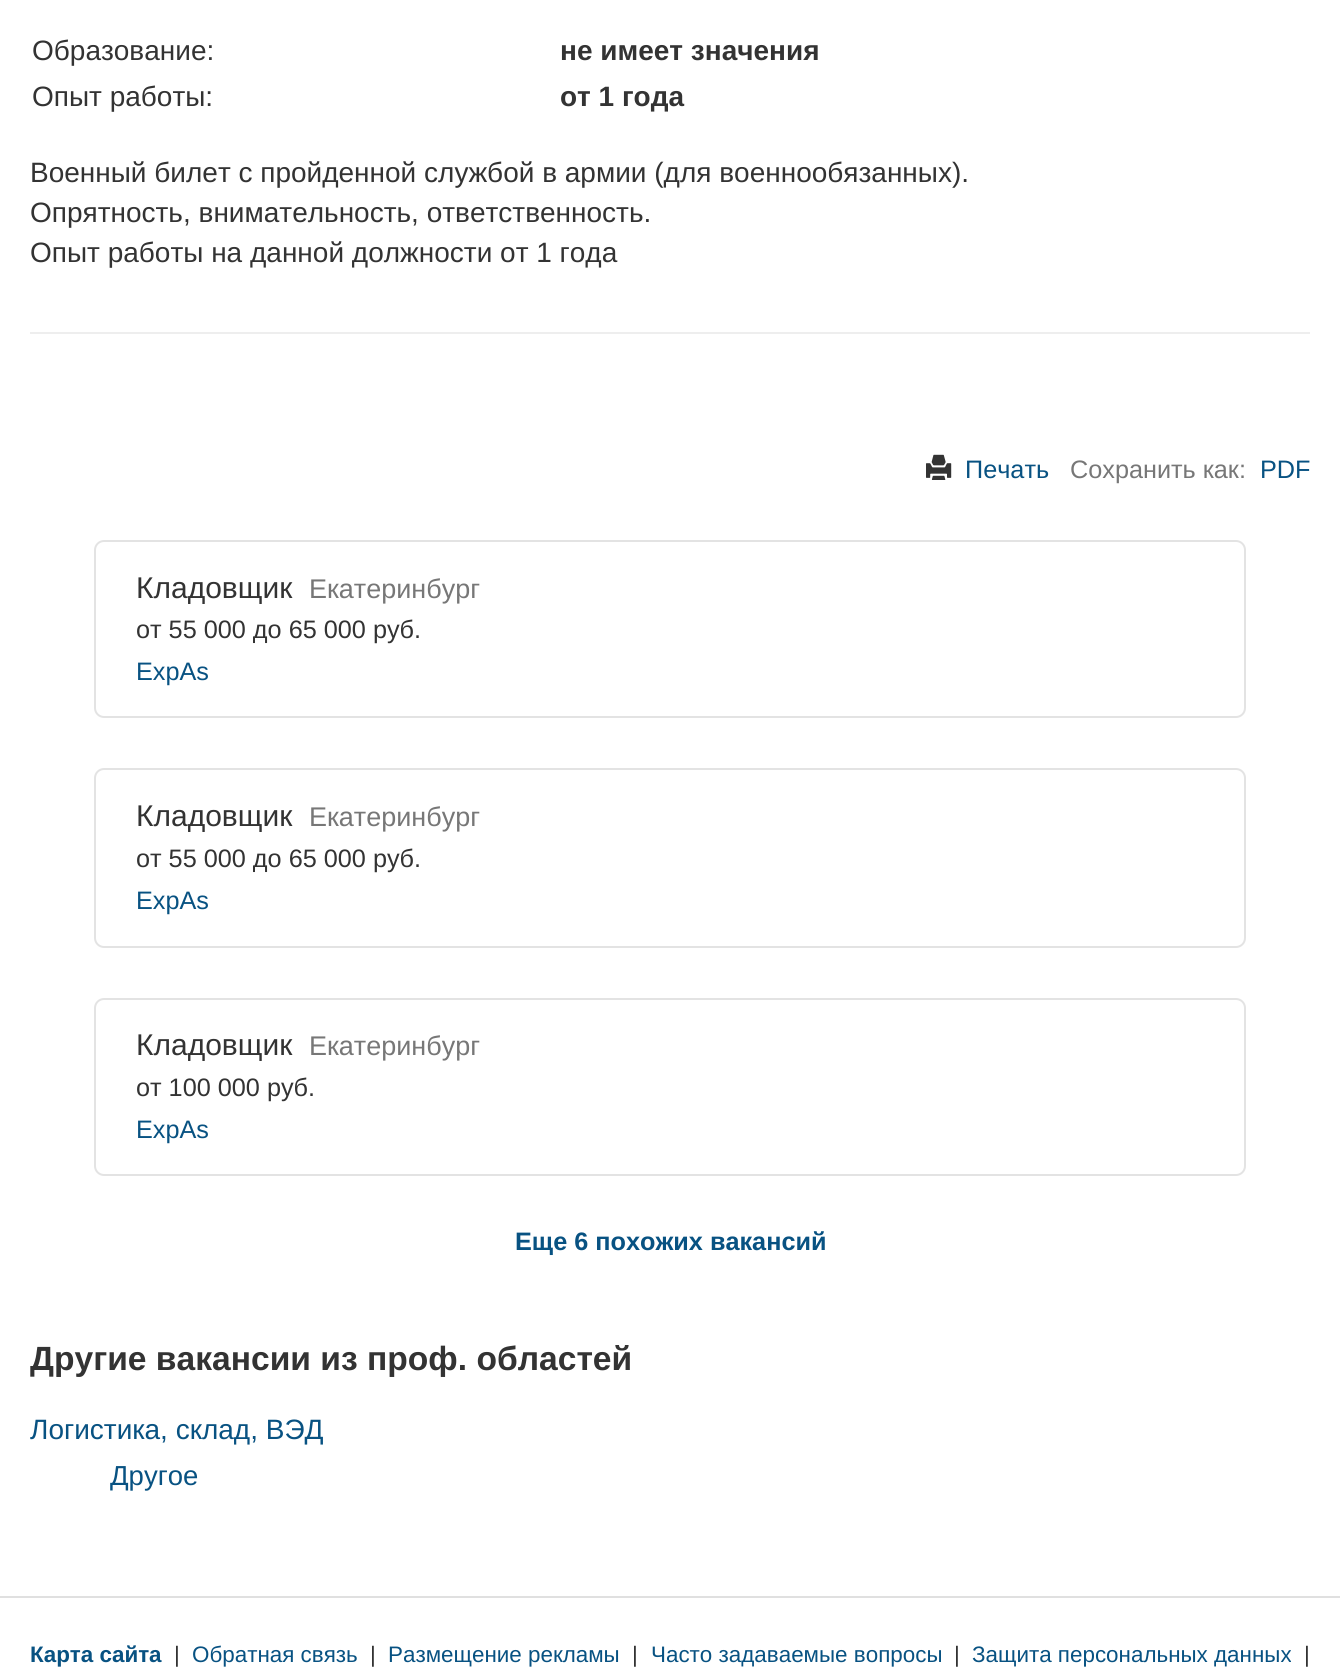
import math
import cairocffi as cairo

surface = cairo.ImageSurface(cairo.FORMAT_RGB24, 1340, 1673)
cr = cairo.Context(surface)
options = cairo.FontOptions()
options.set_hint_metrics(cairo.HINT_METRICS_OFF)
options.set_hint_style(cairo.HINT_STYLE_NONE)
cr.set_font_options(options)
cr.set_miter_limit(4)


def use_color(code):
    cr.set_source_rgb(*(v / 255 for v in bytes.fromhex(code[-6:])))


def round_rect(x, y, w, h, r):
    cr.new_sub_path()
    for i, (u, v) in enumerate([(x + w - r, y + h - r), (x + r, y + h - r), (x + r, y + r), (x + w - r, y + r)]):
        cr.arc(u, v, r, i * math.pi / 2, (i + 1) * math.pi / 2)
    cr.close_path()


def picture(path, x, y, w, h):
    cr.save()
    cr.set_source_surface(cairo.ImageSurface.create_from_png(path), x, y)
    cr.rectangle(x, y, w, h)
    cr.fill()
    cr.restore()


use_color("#ffffff")
cr.paint()
cr.select_font_face("Liberation Sans")
cr.set_font_size(28)
use_color("#333333")
cr.move_to(32, 60)
cr.show_text("Образование:")
cr.select_font_face("Liberation Sans", cairo.FONT_SLANT_NORMAL, cairo.FONT_WEIGHT_BOLD)
cr.move_to(560, 60)
cr.show_text("не имеет значения")
cr.select_font_face("Liberation Sans")
cr.move_to(32, 106)
cr.show_text("Опыт работы:")
cr.select_font_face("Liberation Sans", cairo.FONT_SLANT_NORMAL, cairo.FONT_WEIGHT_BOLD)
cr.move_to(560, 106)
cr.show_text("от 1 года")
cr.select_font_face("Liberation Sans")
cr.move_to(30, 182)
cr.show_text("Военный билет с пройденной службой в армии (для военнообязанных).")
cr.move_to(30, 222)
cr.show_text("Опрятность, внимательность, ответственность.")
cr.move_to(30, 262)
cr.show_text("Опыт работы на данной должности от 1 года")
use_color("#eeeeee")
cr.rectangle(30, 332, 1280, 2)
cr.fill()
picture("img1.png", 926, 454, 26, 26)
cr.set_font_size(25.25)
use_color("#085282")
cr.move_to(965, 478)
cr.show_text("Печать")
use_color("#777777")
cr.move_to(1070, 478)
cr.show_text("Сохранить как:")
use_color("#085282")
cr.move_to(1260, 478)
cr.show_text("PDF")
round_rect(95, 541, 1150, 176, 9)
use_color("#e3e3e3")
cr.stroke()
cr.set_font_size(30)
use_color("#333333")
cr.move_to(136, 598)
cr.show_text("Кладовщик")
cr.set_font_size(27)
use_color("#777777")
cr.move_to(309, 598)
cr.show_text("Екатеринбург")
cr.set_font_size(25.25)
use_color("#333333")
cr.move_to(136, 638)
cr.show_text("от 55 000 до 65 000 руб.")
use_color("#085282")
cr.move_to(136, 680)
cr.show_text("ExpAs")
round_rect(95, 769, 1150, 178, 9)
use_color("#e3e3e3")
cr.stroke()
cr.set_font_size(30)
use_color("#333333")
cr.move_to(136, 826)
cr.show_text("Кладовщик")
cr.set_font_size(27)
use_color("#777777")
cr.move_to(309, 826)
cr.show_text("Екатеринбург")
cr.set_font_size(25.25)
use_color("#333333")
cr.move_to(136, 867)
cr.show_text("от 55 000 до 65 000 руб.")
use_color("#085282")
cr.move_to(136, 909)
cr.show_text("ExpAs")
round_rect(95, 999, 1150, 176, 9)
use_color("#e3e3e3")
cr.stroke()
cr.set_font_size(30)
use_color("#333333")
cr.move_to(136, 1055)
cr.show_text("Кладовщик")
cr.set_font_size(27)
use_color("#777777")
cr.move_to(309, 1055)
cr.show_text("Екатеринбург")
cr.set_font_size(25.25)
use_color("#333333")
cr.move_to(136, 1096)
cr.show_text("от 100 000 руб.")
use_color("#085282")
cr.move_to(136, 1138)
cr.show_text("ExpAs")
cr.select_font_face("Liberation Sans", cairo.FONT_SLANT_NORMAL, cairo.FONT_WEIGHT_BOLD)
cr.move_to(515, 1250)
cr.show_text("Еще 6 похожих вакансий")
cr.set_font_size(33.6)
use_color("#333333")
cr.move_to(30, 1370)
cr.show_text("Другие вакансии из проф. областей")
cr.select_font_face("Liberation Sans")
cr.set_font_size(28)
use_color("#085282")
cr.move_to(30, 1439)
cr.show_text("Логистика, склад, ВЭД")
cr.set_font_size(27.5)
cr.move_to(110, 1485)
cr.show_text("Другое")
use_color("#e0e0e0")
cr.rectangle(0, 1596, 1340, 2)
cr.fill()
cr.select_font_face("Liberation Sans", cairo.FONT_SLANT_NORMAL, cairo.FONT_WEIGHT_BOLD)
cr.set_font_size(22.4)
use_color("#085282")
cr.move_to(30, 1662)
cr.show_text("Карта сайта")
cr.select_font_face("Liberation Sans")
use_color("#333333")
cr.move_to(174, 1662)
cr.show_text("|")
use_color("#085282")
cr.move_to(192, 1662)
cr.show_text("Обратная связь")
use_color("#333333")
cr.move_to(370, 1662)
cr.show_text("|")
use_color("#085282")
cr.move_to(388, 1662)
cr.show_text("Размещение рекламы")
use_color("#333333")
cr.move_to(632, 1662)
cr.show_text("|")
use_color("#085282")
cr.move_to(651, 1662)
cr.show_text("Часто задаваемые вопросы")
use_color("#333333")
cr.move_to(954, 1662)
cr.show_text("|")
use_color("#085282")
cr.move_to(972, 1662)
cr.show_text("Защита персональных данных")
use_color("#333333")
cr.move_to(1304, 1662)
cr.show_text("|")
surface.write_to_png("result.png")
